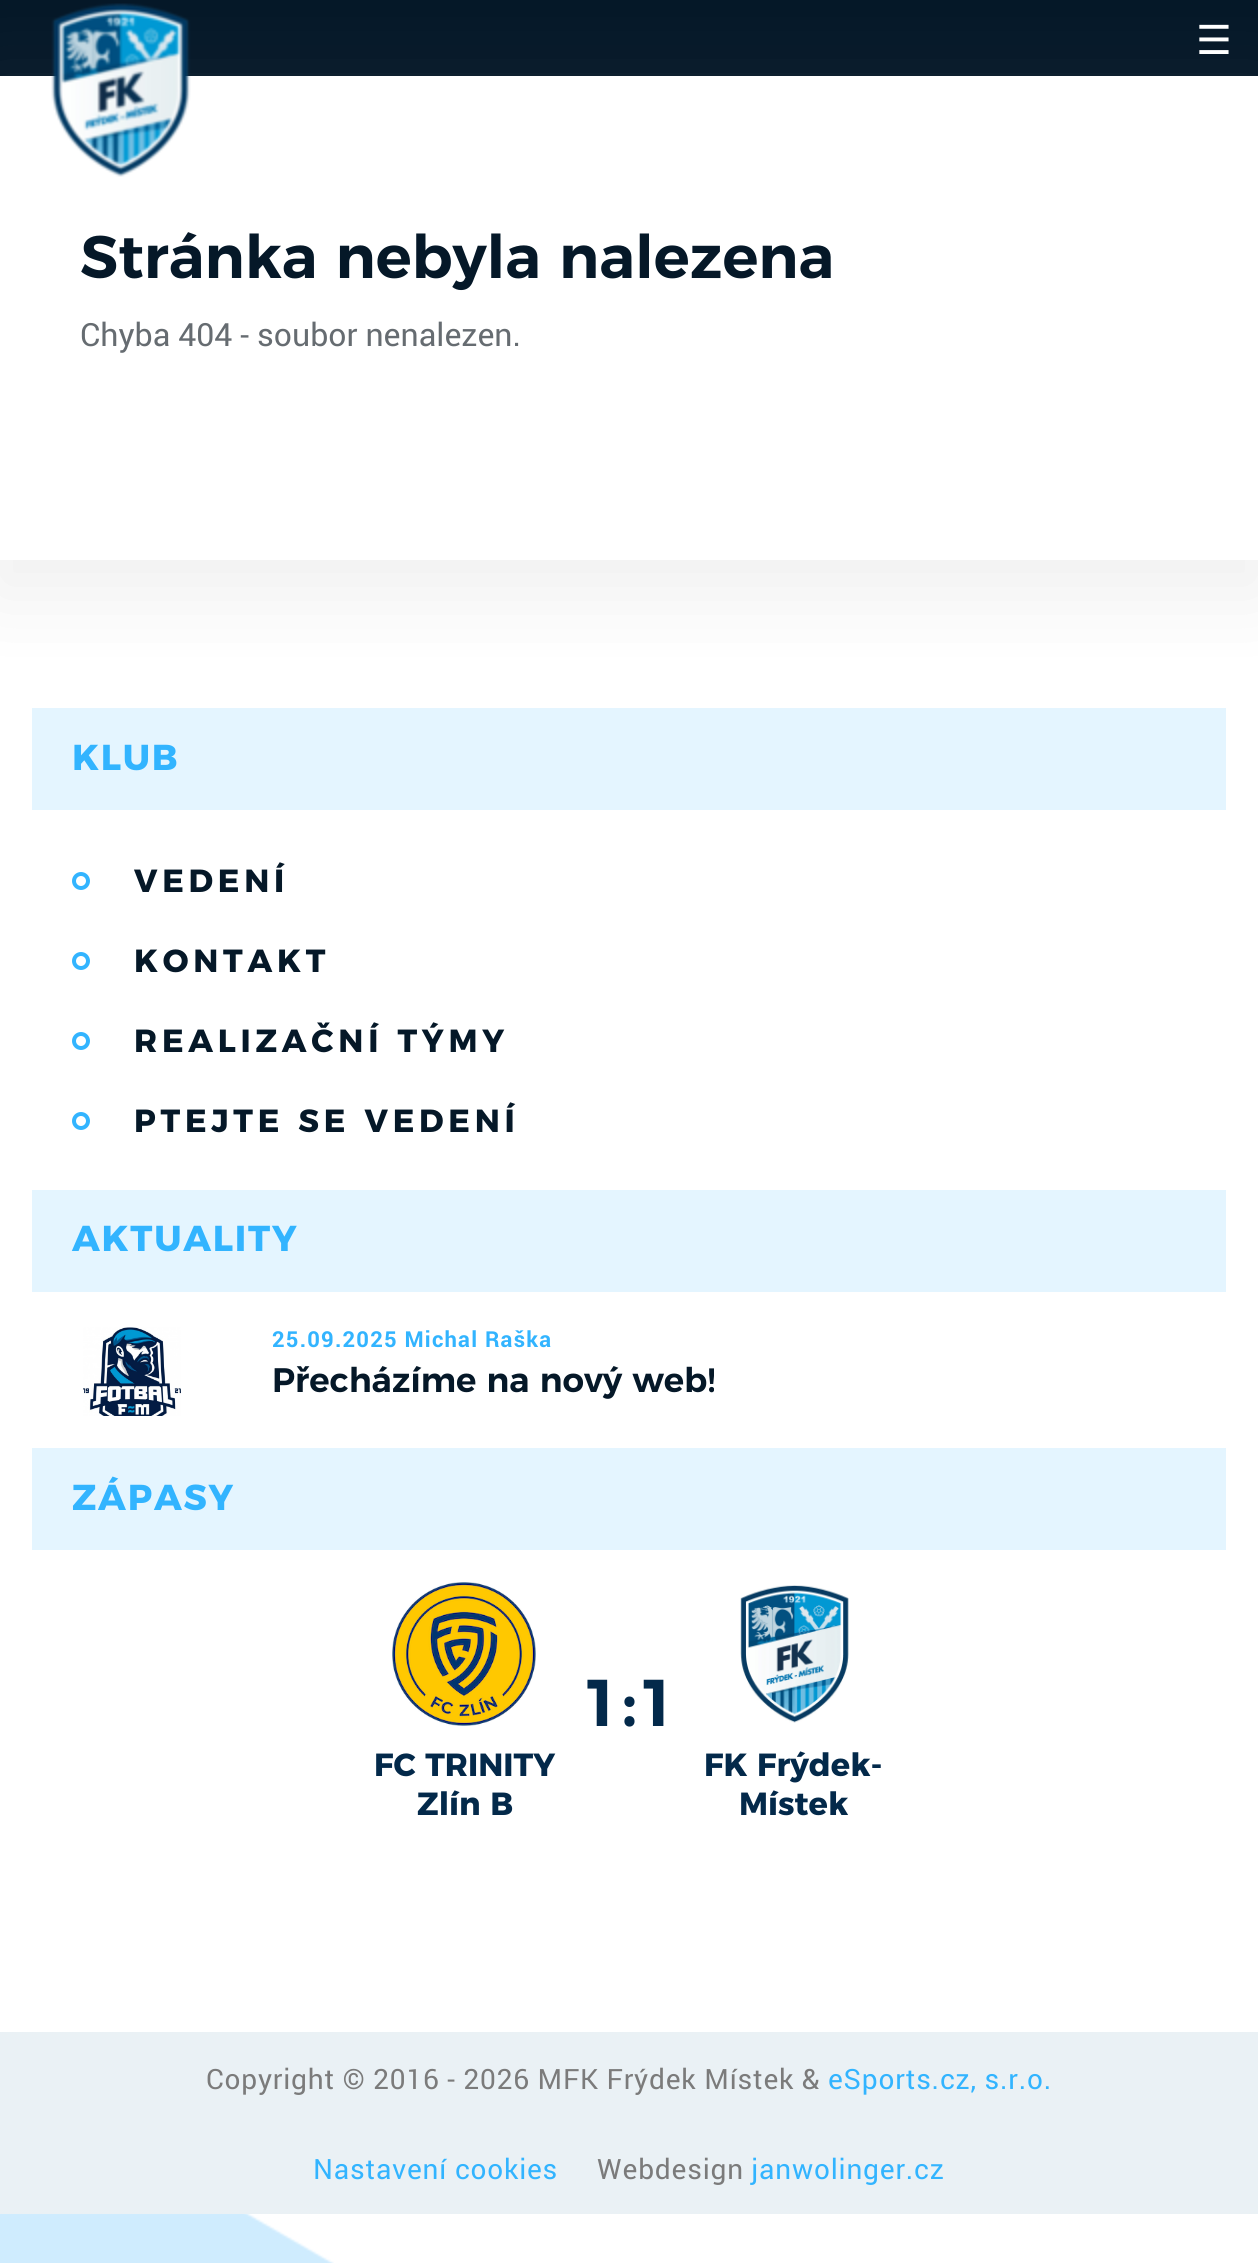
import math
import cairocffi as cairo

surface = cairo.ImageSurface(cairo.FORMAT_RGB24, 1258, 2263)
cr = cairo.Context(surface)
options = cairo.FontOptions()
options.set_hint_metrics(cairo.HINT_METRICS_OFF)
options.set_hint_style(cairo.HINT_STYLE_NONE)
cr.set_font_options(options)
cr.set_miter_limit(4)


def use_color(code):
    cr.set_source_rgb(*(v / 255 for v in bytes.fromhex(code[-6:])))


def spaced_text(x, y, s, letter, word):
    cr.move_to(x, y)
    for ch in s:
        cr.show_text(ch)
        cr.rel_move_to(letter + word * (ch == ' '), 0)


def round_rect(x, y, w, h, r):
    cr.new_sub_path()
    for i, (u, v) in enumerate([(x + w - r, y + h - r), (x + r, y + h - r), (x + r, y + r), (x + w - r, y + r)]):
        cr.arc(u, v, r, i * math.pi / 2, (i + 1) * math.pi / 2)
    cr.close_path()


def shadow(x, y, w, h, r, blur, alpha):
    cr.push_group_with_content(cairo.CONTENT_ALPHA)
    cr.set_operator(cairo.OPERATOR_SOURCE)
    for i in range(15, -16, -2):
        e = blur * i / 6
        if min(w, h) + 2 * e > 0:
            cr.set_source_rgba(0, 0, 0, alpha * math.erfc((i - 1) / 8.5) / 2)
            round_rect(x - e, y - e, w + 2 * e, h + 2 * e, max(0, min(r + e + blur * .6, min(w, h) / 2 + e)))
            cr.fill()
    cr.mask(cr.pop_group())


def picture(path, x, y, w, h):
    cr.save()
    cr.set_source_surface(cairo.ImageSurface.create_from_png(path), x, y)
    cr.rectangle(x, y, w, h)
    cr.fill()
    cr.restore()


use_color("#ffffff")
cr.paint()
picture("img1.png", 0, 2214, 334, 49)
use_color("#051828")
cr.rectangle(0, 0, 1258, 76)
cr.fill()
cr.save()
cr.set_fill_rule(cairo.FILL_RULE_EVEN_ODD)
cr.new_path()
cr.move_to(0, 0)
cr.line_to(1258, 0)
cr.line_to(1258, 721)
cr.line_to(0, 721)
cr.close_path()
cr.move_to(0, 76)
cr.line_to(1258, 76)
cr.line_to(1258, 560)
cr.line_to(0, 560)
cr.close_path()
cr.clip()
use_color("#939393")
shadow(-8, 94, 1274, 500, 0, 42, 0.15)
cr.restore()
picture("img2.png", 51, 3, 140, 174)
cr.select_font_face("DejaVu Sans")
cr.set_font_size(40)
use_color("#ffffff")
cr.move_to(1196, 54)
cr.show_text("☰")
cr.select_font_face("Montserrat SemiBold")
cr.set_font_size(60)
use_color("#051828")
cr.move_to(80, 278)
cr.show_text("Stránka nebyla nalezena")
cr.select_font_face("Roboto")
cr.set_font_size(32)
use_color("#666c71")
cr.move_to(80, 346)
cr.show_text("Chyba 404 - soubor nenalezen.")
use_color("#e4f5ff")
cr.rectangle(32, 708, 1194, 102)
cr.fill()
cr.select_font_face("Montserrat", cairo.FONT_SLANT_NORMAL, cairo.FONT_WEIGHT_BOLD)
cr.set_font_size(36)
use_color("#32b4ff")
spaced_text(72, 770, "KLUB", 1.75, 0)
cr.new_path()
cr.arc(81, 881, 7, 0, 2 * math.pi)
cr.set_line_width(4)
cr.stroke()
cr.set_font_size(32)
use_color("#051828")
spaced_text(134, 892, "VEDENÍ", 4.75, 0)
cr.new_path()
cr.arc(81, 961, 7, 0, 2 * math.pi)
use_color("#32b4ff")
cr.stroke()
use_color("#051828")
spaced_text(134, 972, "KONTAKT", 4.75, 0)
cr.new_path()
cr.arc(81, 1041, 7, 0, 2 * math.pi)
use_color("#32b4ff")
cr.stroke()
use_color("#051828")
spaced_text(134, 1052, "REALIZAČNÍ TÝMY", 4.75, 0)
cr.new_path()
cr.arc(81, 1121, 7, 0, 2 * math.pi)
use_color("#32b4ff")
cr.stroke()
use_color("#051828")
spaced_text(134, 1132, "PTEJTE SE VEDENÍ", 4.75, 0)
use_color("#e4f5ff")
cr.rectangle(32, 1190, 1194, 102)
cr.fill()
cr.set_font_size(36)
use_color("#32b4ff")
spaced_text(72, 1251, "AKTUALITY", 1.75, 0)
picture("img3.png", 83, 1327, 98, 89)
cr.select_font_face("Roboto", cairo.FONT_SLANT_NORMAL, cairo.FONT_WEIGHT_BOLD)
cr.set_font_size(22)
spaced_text(272, 1347, "25.09.2025 Michal Raška", 1.2, 0)
cr.select_font_face("Montserrat SemiBold")
cr.set_font_size(34)
use_color("#051828")
cr.move_to(272, 1392)
cr.show_text("Přecházíme na nový web!")
use_color("#e4f5ff")
cr.rectangle(32, 1448, 1194, 102)
cr.fill()
cr.select_font_face("Montserrat", cairo.FONT_SLANT_NORMAL, cairo.FONT_WEIGHT_BOLD)
cr.set_font_size(36)
use_color("#32b4ff")
spaced_text(72, 1510, "ZÁPASY", 1.75, 0)
cr.select_font_face("Montserrat SemiBold")
cr.set_font_size(66)
use_color("#03294a")
cr.move_to(581, 1726)
cr.show_text("1:1")
picture("img4.png", 392, 1582, 144, 144)
cr.select_font_face("Montserrat", cairo.FONT_SLANT_NORMAL, cairo.FONT_WEIGHT_BOLD)
cr.set_font_size(32)
cr.move_to(374, 1776)
cr.show_text("FC TRINITY")
cr.move_to(417, 1815)
cr.show_text("Zlín B")
picture("img5.png", 740, 1585, 109, 138)
cr.move_to(704, 1776)
cr.show_text("FK Frýdek-")
cr.move_to(739, 1815)
cr.show_text("Místek")
use_color("#eaf1f5")
cr.rectangle(0, 2032, 1258, 182)
cr.fill()
cr.select_font_face("Roboto")
cr.set_font_size(28)
use_color("#7b7b7b")
spaced_text(206, 2089, "Copyright © 2016 - 2026 MFK Frýdek Místek &", 0.8, 0)
use_color("#32b4ff")
spaced_text(828, 2089, "eSports.cz, s.r.o.", 0.8, 0)
spaced_text(313, 2179, "Nastavení cookies", 0.8, 0)
use_color("#7b7b7b")
spaced_text(597, 2179, "Webdesign", 0.8, 0)
use_color("#32b4ff")
spaced_text(751, 2179, "janwolinger.cz", 0.8, 0)
surface.write_to_png("result.png")
